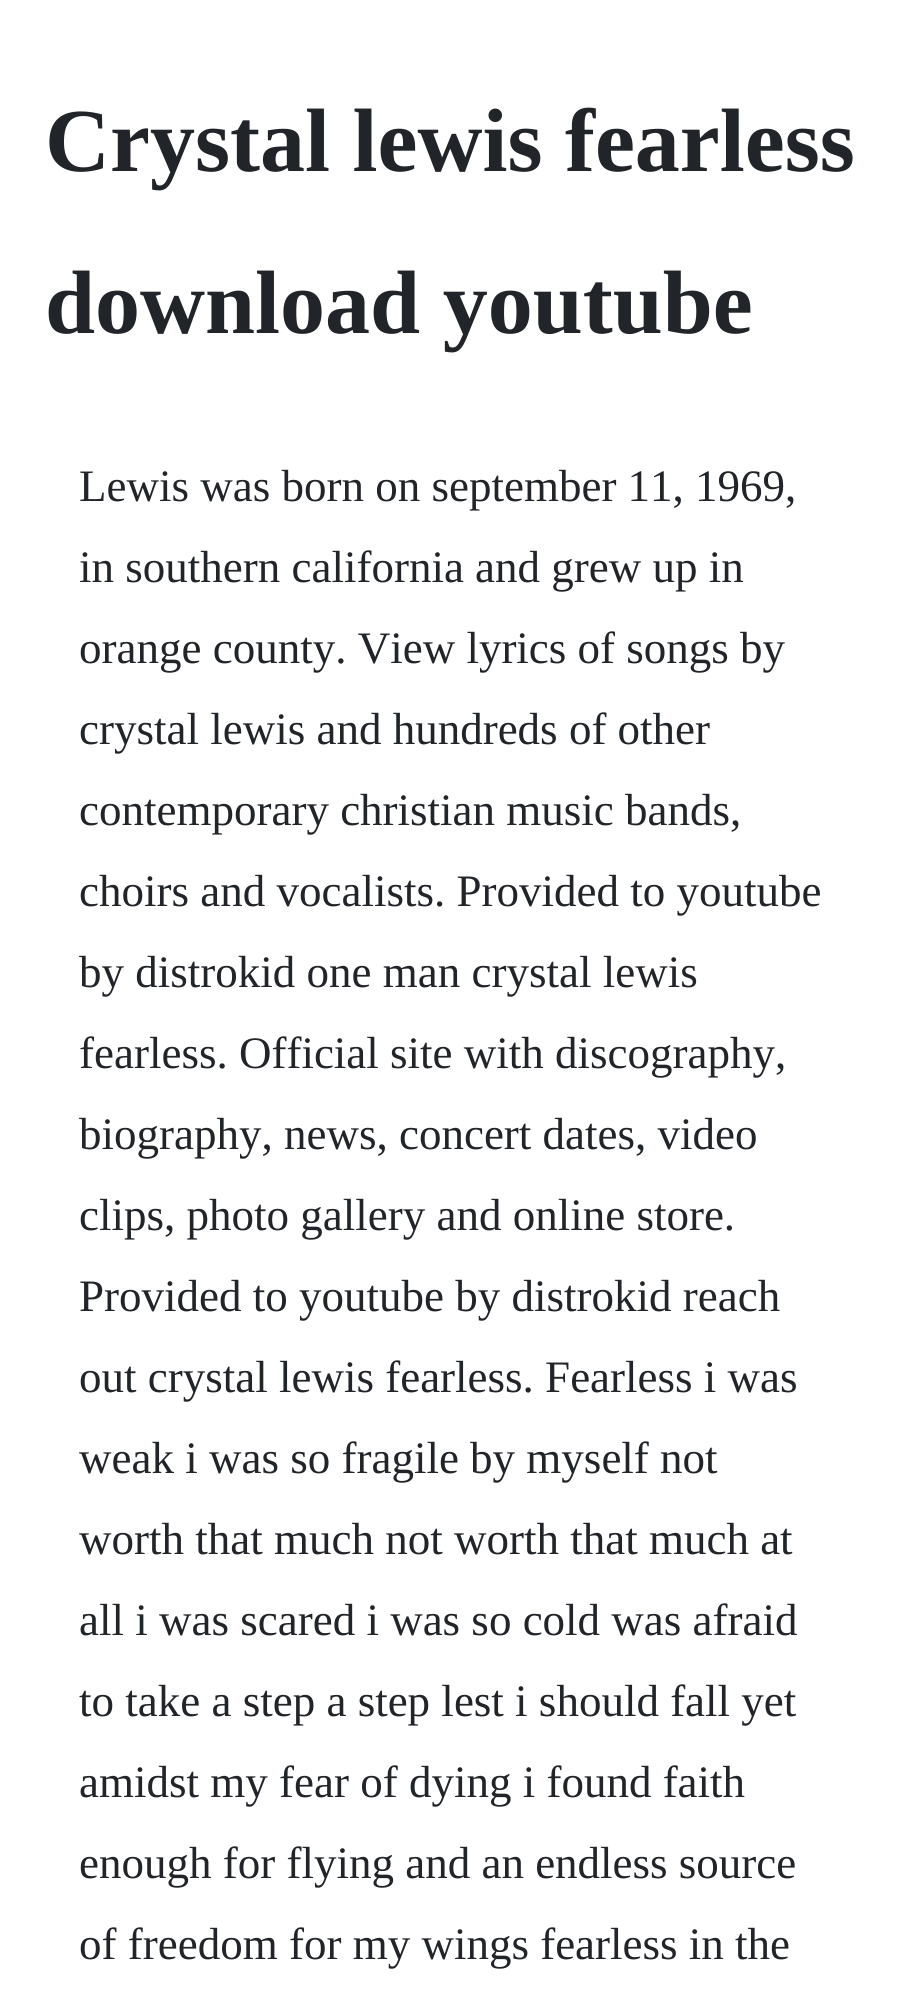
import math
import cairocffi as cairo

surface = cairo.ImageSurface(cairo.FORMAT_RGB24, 904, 2011)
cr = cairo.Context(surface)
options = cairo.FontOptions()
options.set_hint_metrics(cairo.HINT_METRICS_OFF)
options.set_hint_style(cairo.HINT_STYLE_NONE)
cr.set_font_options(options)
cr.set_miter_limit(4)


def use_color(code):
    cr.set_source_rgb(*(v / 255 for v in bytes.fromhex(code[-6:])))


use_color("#ffffff")
cr.paint()
cr.select_font_face("Liberation Serif", cairo.FONT_SLANT_NORMAL, cairo.FONT_WEIGHT_BOLD)
cr.set_font_size(90)
use_color("#212529")
cr.move_to(45, 171)
cr.show_text("Crystal lewis fearless")
cr.move_to(45, 333)
cr.show_text("download youtube")
cr.select_font_face("Liberation Serif")
cr.set_font_size(45)
cr.move_to(79, 501)
cr.show_text("Lewis was born on september 11, 1969,")
cr.move_to(79, 582)
cr.show_text("in southern california and grew up in")
cr.move_to(79, 663)
cr.show_text("orange county. View lyrics of songs by")
cr.move_to(79, 744)
cr.show_text("crystal lewis and hundreds of other")
cr.move_to(79, 825)
cr.show_text("contemporary christian music bands,")
cr.move_to(79, 906)
cr.show_text("choirs and vocalists. Provided to youtube")
cr.move_to(79, 987)
cr.show_text("by distrokid one man crystal lewis")
cr.move_to(79, 1068)
cr.show_text("fearless. Official site with discography,")
cr.move_to(79, 1149)
cr.show_text("biography, news, concert dates, video")
cr.move_to(79, 1230)
cr.show_text("clips, photo gallery and online store.")
cr.move_to(79, 1311)
cr.show_text("Provided to youtube by distrokid reach")
cr.move_to(79, 1392)
cr.show_text("out crystal lewis fearless. Fearless i was")
cr.move_to(79, 1473)
cr.show_text("weak i was so fragile by myself not")
cr.move_to(79, 1554)
cr.show_text("worth that much not worth that much at")
cr.move_to(79, 1635)
cr.show_text("all i was scared i was so cold was afraid")
cr.move_to(79, 1716)
cr.show_text("to take a step a step lest i should fall yet")
cr.move_to(79, 1797)
cr.show_text("amidst my fear of dying i found faith")
cr.move_to(79, 1878)
cr.show_text("enough for flying and an endless source")
cr.move_to(79, 1959)
cr.show_text("of freedom for my wings fearless in the")
surface.write_to_png("result.png")
